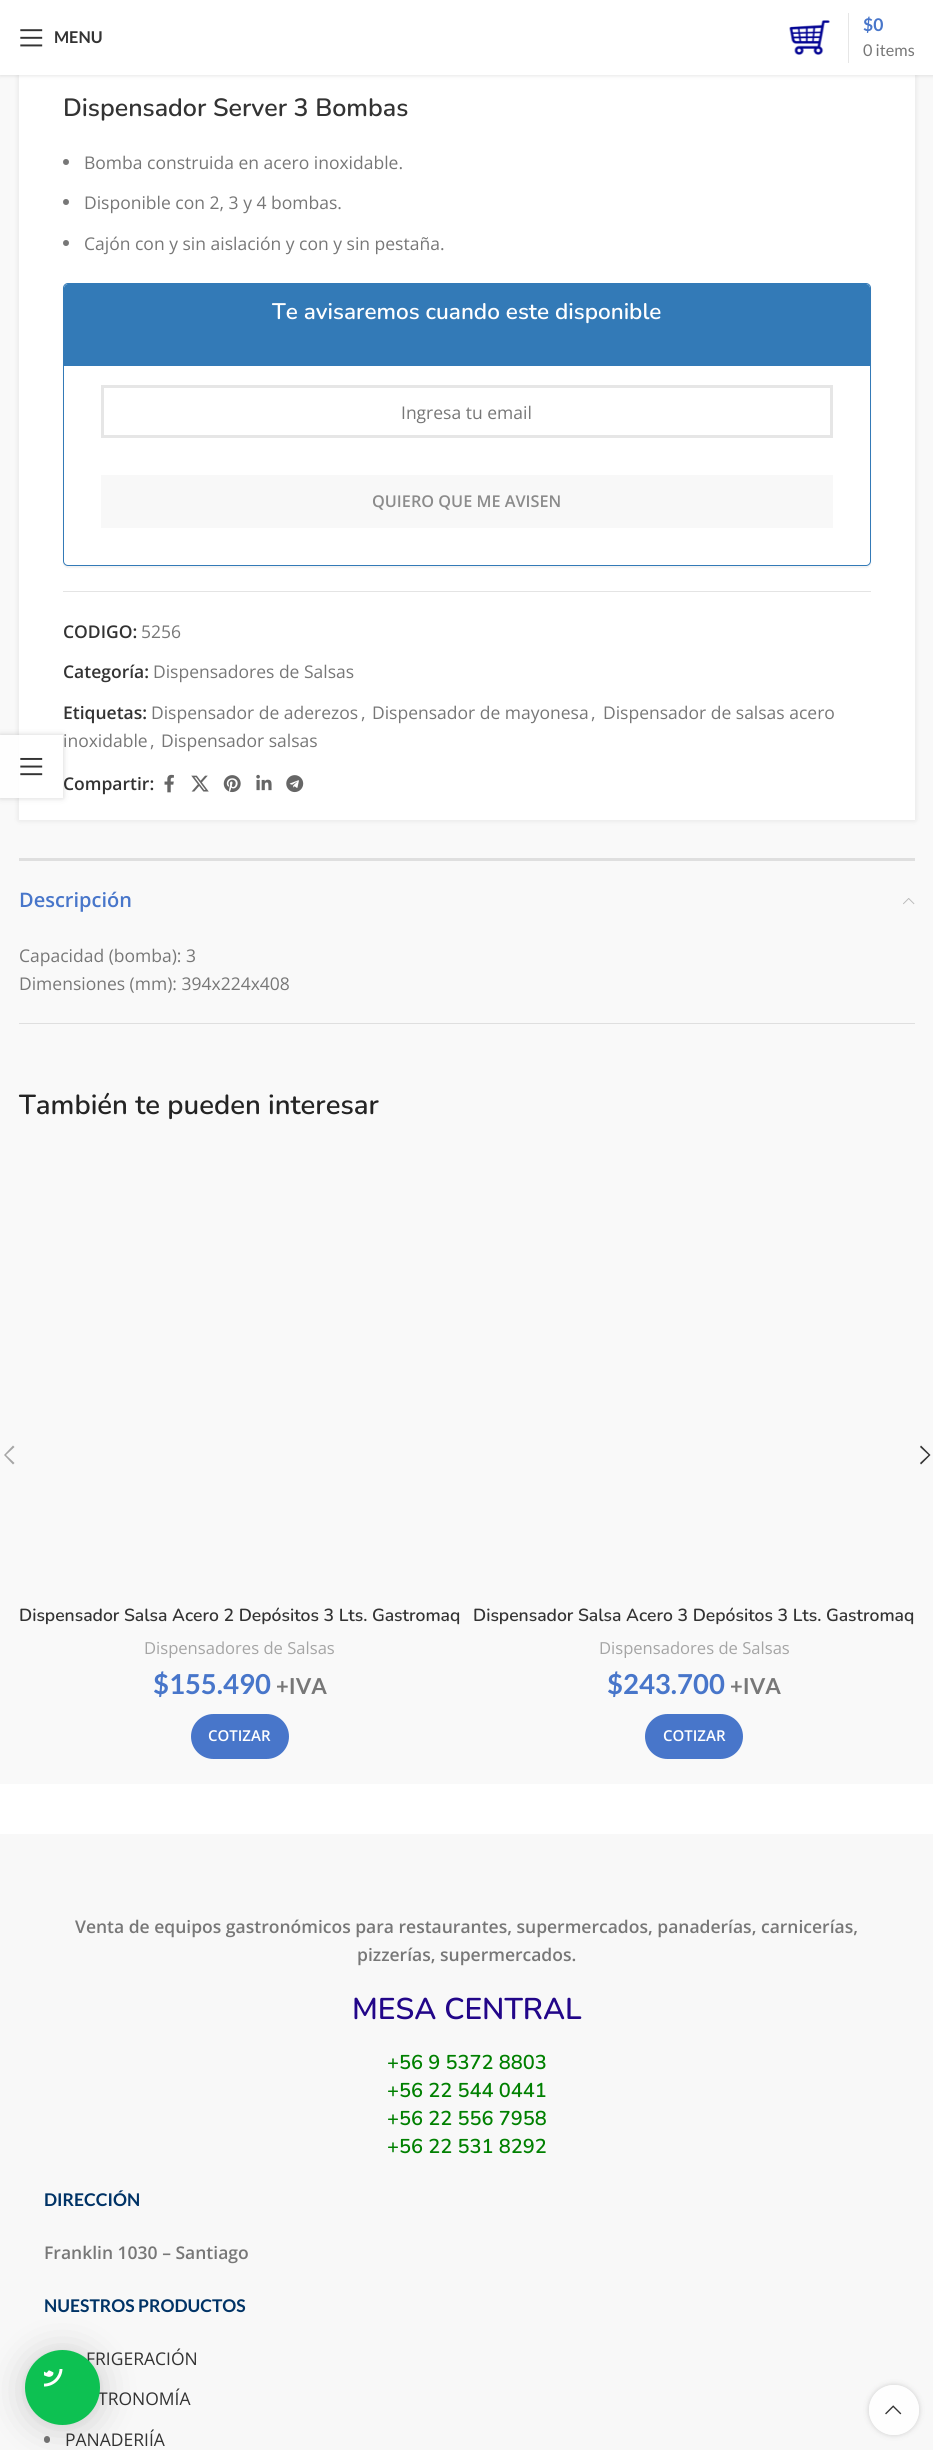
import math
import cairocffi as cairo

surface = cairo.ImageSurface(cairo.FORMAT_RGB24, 933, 2450)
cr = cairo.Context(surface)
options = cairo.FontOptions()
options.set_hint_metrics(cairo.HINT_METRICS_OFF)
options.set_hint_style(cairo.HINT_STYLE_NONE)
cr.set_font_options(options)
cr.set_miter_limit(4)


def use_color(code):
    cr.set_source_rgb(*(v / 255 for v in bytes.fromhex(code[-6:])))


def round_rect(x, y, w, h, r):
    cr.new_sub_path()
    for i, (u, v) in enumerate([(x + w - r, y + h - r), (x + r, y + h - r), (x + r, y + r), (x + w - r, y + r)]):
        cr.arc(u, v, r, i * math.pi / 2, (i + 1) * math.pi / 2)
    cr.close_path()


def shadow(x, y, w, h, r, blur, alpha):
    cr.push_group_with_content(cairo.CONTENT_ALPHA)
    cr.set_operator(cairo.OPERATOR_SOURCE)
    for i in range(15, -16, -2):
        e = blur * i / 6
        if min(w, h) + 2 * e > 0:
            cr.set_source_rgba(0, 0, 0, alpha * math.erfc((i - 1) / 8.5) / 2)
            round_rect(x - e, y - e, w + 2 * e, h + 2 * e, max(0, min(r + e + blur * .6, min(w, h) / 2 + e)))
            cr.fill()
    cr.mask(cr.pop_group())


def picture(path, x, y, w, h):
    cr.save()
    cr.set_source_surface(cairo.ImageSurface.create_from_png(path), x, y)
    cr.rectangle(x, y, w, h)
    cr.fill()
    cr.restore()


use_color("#ffffff")
cr.paint()
use_color("#f9f9f9")
cr.rectangle(0, 75, 933, 1709)
cr.fill()
use_color("#000000")
shadow(19, 1, 896, 819, 0, 3, 0.1)
use_color("#ffffff")
cr.rectangle(19, 75, 896, 745)
cr.fill()
use_color("#000000")
shadow(0, 1, 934, 75, 0, 2, 0.1)
use_color("#ffffff")
cr.rectangle(0, 0, 933, 75)
cr.fill()
picture("img1.png", 20, 29, 23, 18)
cr.select_font_face("Lato", cairo.FONT_SLANT_NORMAL, cairo.FONT_WEIGHT_BOLD)
cr.set_font_size(16.25)
use_color("#333333")
cr.move_to(54, 43)
cr.show_text("MENU")
picture("img2.png", 789, 20, 41, 35)
use_color("#e6e6e6")
cr.rectangle(848, 13, 1, 50)
cr.fill()
cr.set_font_size(17.5)
use_color("#4876ca")
cr.move_to(863, 31)
cr.show_text("$0")
cr.select_font_face("Lato")
cr.set_font_size(16.25)
use_color("#777777")
cr.move_to(863, 56)
cr.show_text("0 items")
cr.select_font_face("Nunito SemiBold")
cr.set_font_size(25)
use_color("#333333")
cr.move_to(63, 116)
cr.show_text("Dispensador Server 3 Bombas")
use_color("#777777")
cr.new_path()
cr.arc(66, 162, 3, 0, 2 * math.pi)
cr.fill()
cr.select_font_face("Open Sans")
cr.set_font_size(17.5)
cr.move_to(84, 169)
cr.show_text("Bomba construida en acero inoxidable.")
cr.new_path()
cr.arc(66, 202, 3, 0, 2 * math.pi)
cr.fill()
cr.move_to(84, 209)
cr.show_text("Disponible con 2, 3 y 4 bombas.")
cr.new_path()
cr.arc(66, 243, 3, 0, 2 * math.pi)
cr.fill()
cr.move_to(84, 250)
cr.show_text("Cajón con y sin aislación y con y sin pestaña.")
cr.save()
cr.set_fill_rule(cairo.FILL_RULE_EVEN_ODD)
cr.new_path()
cr.move_to(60, 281)
cr.line_to(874, 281)
cr.line_to(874, 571)
cr.line_to(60, 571)
cr.close_path()
cr.move_to(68, 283)
cr.line_to(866, 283)
cr.curve_to(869, 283, 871, 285, 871, 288)
cr.line_to(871, 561)
cr.curve_to(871, 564, 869, 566, 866, 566)
cr.line_to(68, 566)
cr.curve_to(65, 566, 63, 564, 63, 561)
cr.line_to(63, 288)
cr.curve_to(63, 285, 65, 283, 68, 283)
cr.close_path()
cr.clip()
use_color("#000000")
shadow(63, 284, 808, 284, 5, 0.5, 0.05)
cr.restore()
round_rect(63.5, 283.5, 807, 282, 4.5)
use_color("#337ab7")
cr.set_line_width(1)
cr.stroke()
cr.new_path()
cr.move_to(68, 284)
cr.line_to(866, 284)
cr.curve_to(868, 284, 870, 286, 870, 288)
cr.line_to(870, 366)
cr.line_to(64, 366)
cr.line_to(64, 288)
cr.curve_to(64, 286, 66, 284, 68, 284)
cr.close_path()
cr.fill()
cr.select_font_face("Nunito SemiBold")
cr.set_font_size(22.5)
use_color("#ffffff")
cr.move_to(272, 319)
cr.show_text("Te avisaremos cuando este disponible")
cr.rectangle(102.5, 386.5, 729, 50)
use_color("#e6e6e6")
cr.set_line_width(3)
cr.stroke()
cr.select_font_face("Open Sans")
cr.set_font_size(17.5)
use_color("#777777")
cr.move_to(401, 419)
cr.show_text("Ingresa tu email")
use_color("#f8f8f8")
cr.rectangle(101, 475, 732, 53)
cr.fill()
cr.select_font_face("Open Sans SemiBold")
cr.set_font_size(16.25)
use_color("#8b8b8b")
cr.move_to(372, 507)
cr.show_text("QUIERO QUE ME AVISEN")
use_color("#e4e4e4")
cr.rectangle(63, 591, 808, 1)
cr.fill()
cr.set_font_size(17.5)
use_color("#333333")
cr.move_to(63, 638)
cr.show_text("CODIGO:")
cr.select_font_face("Open Sans")
use_color("#777777")
cr.move_to(141, 638)
cr.show_text("5256")
cr.select_font_face("Open Sans SemiBold")
use_color("#333333")
cr.move_to(63, 678)
cr.show_text("Categoría:")
cr.select_font_face("Open Sans")
use_color("#777777")
cr.move_to(153, 678)
cr.show_text("Dispensadores de Salsas")
cr.select_font_face("Open Sans SemiBold")
use_color("#333333")
cr.move_to(63, 719)
cr.show_text("Etiquetas:")
cr.select_font_face("Open Sans")
use_color("#777777")
cr.move_to(151, 719)
cr.show_text("Dispensador de aderezos")
cr.move_to(361, 719)
cr.show_text(",")
cr.move_to(372, 719)
cr.show_text("Dispensador de mayonesa")
cr.move_to(591, 719)
cr.show_text(",")
cr.move_to(603, 719)
cr.show_text("Dispensador de salsas acero")
cr.move_to(63, 747)
cr.show_text("inoxidable")
cr.move_to(150, 747)
cr.show_text(",")
cr.move_to(161, 747)
cr.show_text("Dispensador salsas")
cr.select_font_face("Open Sans SemiBold")
use_color("#333333")
cr.move_to(63, 790)
cr.show_text("Compartir:")
picture("img3.png", 164, 774, 10, 19)
picture("img4.png", 191, 775, 18, 17)
picture("img5.png", 223, 775, 18, 18)
picture("img6.png", 256, 774, 16, 17)
picture("img7.png", 286, 775, 18, 18)
use_color("#dfdfdf")
cr.rectangle(19, 858, 896, 3)
cr.fill()
cr.rectangle(19, 1023, 896, 1)
cr.fill()
cr.set_font_size(20)
use_color("#4876ca")
cr.move_to(19, 907)
cr.show_text("Descripción")
picture("img8.png", 903, 898, 12, 7)
cr.select_font_face("Open Sans")
cr.set_font_size(17.5)
use_color("#777777")
cr.move_to(19, 962)
cr.show_text("Capacidad (bomba): 3")
cr.move_to(19, 990)
cr.show_text("Dimensiones (mm): 394x224x408")
cr.select_font_face("Nunito SemiBold")
cr.set_font_size(27.5)
use_color("#242424")
cr.move_to(19, 1114)
cr.show_text("También te pueden interesar")
use_color("#a5a5a5")
cr.new_path()
cr.move_to(14.5, 1447)
cr.line_to(13, 1445.5)
cr.line_to(4, 1455)
cr.line_to(13, 1464.5)
cr.line_to(14.5, 1463)
cr.line_to(6, 1455)
cr.close_path()
cr.fill()
use_color("#333333")
cr.new_path()
cr.move_to(920, 1447)
cr.line_to(928.5, 1455)
cr.line_to(920, 1463)
cr.line_to(921, 1464.5)
cr.line_to(930.5, 1455)
cr.line_to(921, 1445.5)
cr.close_path()
cr.fill()
cr.set_font_size(17.5)
cr.move_to(19, 1621)
cr.show_text("Dispensador Salsa Acero 2 Depósitos 3 Lts. Gastromaq")
cr.select_font_face("Open Sans")
cr.set_font_size(16.6)
use_color("#a5a5a5")
cr.move_to(144, 1654)
cr.show_text("Dispensadores de Salsas")
cr.select_font_face("Lato", cairo.FONT_SLANT_NORMAL, cairo.FONT_WEIGHT_BOLD)
cr.set_font_size(27.5)
use_color("#4876ca")
cr.move_to(153, 1694)
cr.show_text("$155.490")
cr.set_font_size(22)
use_color("#777777")
cr.move_to(276, 1694)
cr.show_text("+IVA")
use_color("#4876ca")
round_rect(191, 1714, 98, 45, 22.5)
cr.fill()
cr.select_font_face("Open Sans SemiBold")
cr.set_font_size(15)
use_color("#ffffff")
cr.move_to(208, 1741)
cr.show_text("COTIZAR")
cr.select_font_face("Nunito SemiBold")
cr.set_font_size(17.5)
use_color("#333333")
cr.move_to(473, 1621)
cr.show_text("Dispensador Salsa Acero 3 Depósitos 3 Lts. Gastromaq")
cr.select_font_face("Open Sans")
cr.set_font_size(16.6)
use_color("#a5a5a5")
cr.move_to(599, 1654)
cr.show_text("Dispensadores de Salsas")
cr.select_font_face("Lato", cairo.FONT_SLANT_NORMAL, cairo.FONT_WEIGHT_BOLD)
cr.set_font_size(27.5)
use_color("#4876ca")
cr.move_to(607, 1694)
cr.show_text("$243.700")
cr.set_font_size(22)
use_color("#777777")
cr.move_to(730, 1694)
cr.show_text("+IVA")
use_color("#4876ca")
round_rect(645, 1714, 98, 45, 22.5)
cr.fill()
cr.select_font_face("Open Sans SemiBold")
cr.set_font_size(15)
use_color("#ffffff")
cr.move_to(663, 1741)
cr.show_text("COTIZAR")
use_color("#f8f8f8")
cr.rectangle(0, 1834, 933, 616)
cr.fill()
cr.set_font_size(17.5)
use_color("#777777")
cr.move_to(75, 1933)
cr.show_text("Venta de equipos gastronómicos para restaurantes, supermercados, panaderías, carnicerías,")
cr.move_to(357, 1961)
cr.show_text("pizzerías, supermercados.")
cr.select_font_face("Nunito SemiBold")
cr.set_font_size(30)
use_color("#220689")
cr.move_to(352, 2019)
cr.show_text("MESA CENTRAL")
cr.set_font_size(20)
use_color("#008000")
cr.move_to(387, 2069)
cr.show_text("+56 9 5372 8803")
cr.move_to(387, 2097)
cr.show_text("+56 22 544 0441")
cr.move_to(387, 2125)
cr.show_text("+56 22 556 7958")
cr.move_to(387, 2153)
cr.show_text("+56 22 531 8292")
cr.select_font_face("Lato", cairo.FONT_SLANT_NORMAL, cairo.FONT_WEIGHT_BOLD)
cr.set_font_size(17.5)
use_color("#003366")
cr.move_to(44, 2206)
cr.show_text("DIRECCIÓN")
cr.select_font_face("Open Sans SemiBold")
use_color("#777777")
cr.move_to(44, 2259)
cr.show_text("Franklin 1030 – Santiago")
cr.select_font_face("Lato", cairo.FONT_SLANT_NORMAL, cairo.FONT_WEIGHT_BOLD)
use_color("#003366")
cr.move_to(44, 2312)
cr.show_text("NUESTROS PRODUCTOS")
cr.select_font_face("Open Sans")
use_color("#333333")
cr.move_to(86, 2365)
cr.show_text("FRIGERACIÓN")
cr.move_to(98, 2405)
cr.show_text("TRONOMÍA")
use_color("#767676")
round_rect(44, 2436, 6, 7, 3)
cr.fill()
use_color("#333333")
cr.move_to(65, 2446)
cr.show_text("PANADERIÍA")
cr.save()
cr.set_fill_rule(cairo.FILL_RULE_EVEN_ODD)
cr.new_path()
cr.move_to(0, 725)
cr.line_to(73, 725)
cr.line_to(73, 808)
cr.line_to(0, 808)
cr.close_path()
cr.move_to(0, 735)
cr.line_to(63, 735)
cr.line_to(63, 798)
cr.line_to(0, 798)
cr.close_path()
cr.clip()
use_color("#000000")
shadow(0, 735, 63, 63, 0, 3, 0.17)
cr.restore()
cr.set_source_rgba(1, 1, 1, 0.9)
cr.rectangle(0, 735, 63, 63)
cr.fill()
picture("img9.png", 20, 757, 23, 19)
use_color("#000000")
shadow(25, 2353, 75, 75, 37.5, 20, 0.16)
shadow(25, 2351, 75, 75, 37.5, 4, 0.06)
use_color("#0dc152")
cr.arc(62.5, 2387.5, 37.5, 0, 2 * math.pi)
cr.fill()
picture("img10.png", 44, 2369, 19, 18)
cr.save()
cr.set_fill_rule(cairo.FILL_RULE_EVEN_ODD)
cr.new_path()
cr.move_to(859, 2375)
cr.line_to(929, 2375)
cr.line_to(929, 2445)
cr.line_to(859, 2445)
cr.close_path()
cr.move_to(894, 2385)
cr.curve_to(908, 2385, 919, 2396, 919, 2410)
cr.curve_to(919, 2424, 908, 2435, 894, 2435)
cr.curve_to(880, 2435, 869, 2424, 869, 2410)
cr.curve_to(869, 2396, 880, 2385, 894, 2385)
cr.close_path()
cr.clip()
use_color("#000000")
shadow(869, 2385, 50, 50, 25, 3, 0.17)
cr.restore()
cr.set_source_rgba(1, 1, 1, 0.9)
cr.arc(894, 2410, 25, 0, 2 * math.pi)
cr.fill()
picture("img11.png", 885, 2405, 17, 10)
surface.write_to_png("result.png")
